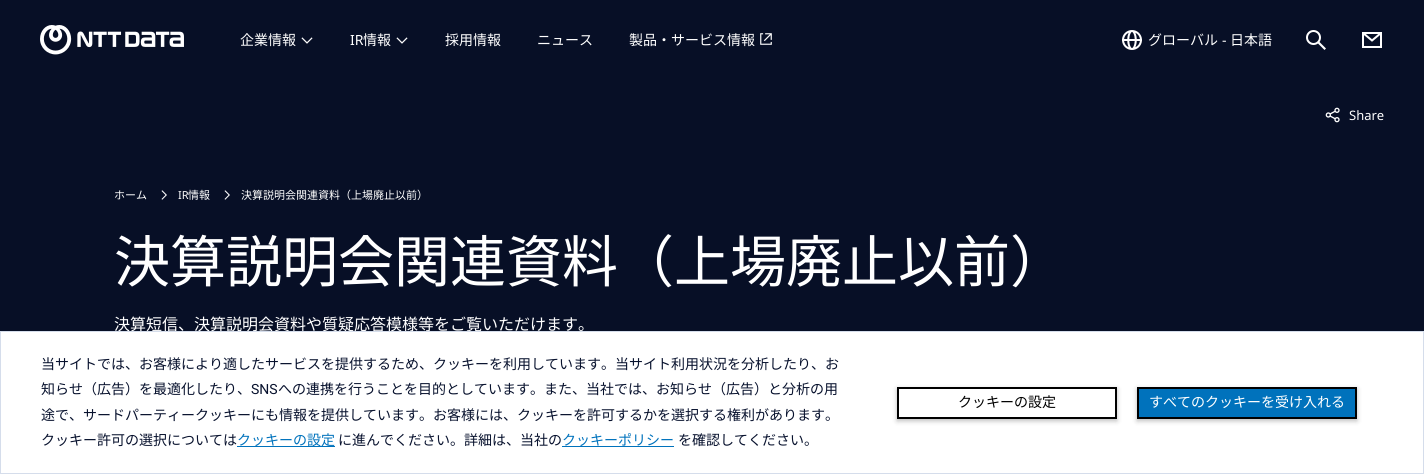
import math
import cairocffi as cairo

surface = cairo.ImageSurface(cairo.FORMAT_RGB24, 1424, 474)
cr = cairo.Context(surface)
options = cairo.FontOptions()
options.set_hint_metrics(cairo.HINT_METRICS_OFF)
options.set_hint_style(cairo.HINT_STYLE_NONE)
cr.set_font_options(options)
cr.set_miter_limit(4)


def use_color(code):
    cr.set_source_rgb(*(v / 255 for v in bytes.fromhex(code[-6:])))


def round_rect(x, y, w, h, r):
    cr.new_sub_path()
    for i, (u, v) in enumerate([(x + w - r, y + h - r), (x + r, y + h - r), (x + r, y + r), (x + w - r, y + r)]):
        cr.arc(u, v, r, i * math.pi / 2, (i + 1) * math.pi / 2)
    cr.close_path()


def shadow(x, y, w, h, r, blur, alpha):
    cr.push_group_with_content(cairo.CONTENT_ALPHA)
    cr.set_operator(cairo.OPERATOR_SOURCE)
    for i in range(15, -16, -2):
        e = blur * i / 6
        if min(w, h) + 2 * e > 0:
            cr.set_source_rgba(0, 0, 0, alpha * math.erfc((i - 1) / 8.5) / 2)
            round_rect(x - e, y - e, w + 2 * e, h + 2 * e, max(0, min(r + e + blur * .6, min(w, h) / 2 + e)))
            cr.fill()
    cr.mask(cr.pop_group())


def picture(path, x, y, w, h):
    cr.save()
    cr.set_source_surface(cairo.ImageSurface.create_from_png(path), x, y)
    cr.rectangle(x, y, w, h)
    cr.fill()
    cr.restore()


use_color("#070f26")
cr.paint()
picture("img1.png", 40, 25, 144, 30)
cr.select_font_face("Noto Sans JP Thin")
cr.set_font_size(14)
use_color("#ffffff")
cr.move_to(240, 45)
cr.show_text("企業情報")
picture("img2.png", 301, 37, 12, 7)
cr.select_font_face("Noto Sans")
cr.move_to(350, 45)
cr.show_text("IR")
cr.select_font_face("Noto Sans JP Thin")
cr.move_to(363, 45)
cr.show_text("情報")
picture("img2.png", 396, 37, 12, 7)
cr.move_to(445, 45)
cr.show_text("採用情報")
cr.move_to(537, 45)
cr.show_text("ニュース")
cr.move_to(629, 45)
cr.show_text("製品・サービス情報")
picture("img3.png", 760, 33, 12, 12)
picture("img4.png", 1122, 30, 20, 20)
cr.move_to(1148, 45)
cr.show_text("グローバル")
cr.select_font_face("Noto Sans")
cr.move_to(1222, 45)
cr.show_text("-")
cr.select_font_face("Noto Sans JP Thin")
cr.move_to(1230, 45)
cr.show_text("日本語")
picture("img5.png", 1306, 30, 20, 20)
picture("img6.png", 1362, 32, 20, 16)
picture("img7.png", 1325, 107, 15, 16)
cr.select_font_face("Noto Sans")
cr.set_font_size(13)
cr.move_to(1349, 120)
cr.show_text("Share")
cr.select_font_face("Noto Sans JP Thin")
cr.set_font_size(11)
cr.move_to(114, 199)
cr.show_text("ホーム")
picture("img8.png", 161, 190, 6, 10)
cr.select_font_face("Noto Sans")
cr.move_to(178, 199)
cr.show_text("IR")
cr.select_font_face("Noto Sans JP Thin")
cr.move_to(188, 199)
cr.show_text("情報")
picture("img8.png", 224, 190, 6, 10)
cr.move_to(241, 199)
cr.show_text("決算説明会関連資料（上場廃止以前）")
cr.set_font_size(56)
cr.move_to(114, 282)
cr.show_text("決算説明会関連資料（上場廃止以前）")
cr.set_font_size(16)
cr.move_to(114, 330)
cr.show_text("決算短信、決算説明会資料や質疑応答模様等をご覧いただけます。")
cr.rectangle(0.5, 331.5, 1423, 142)
cr.fill_preserve()
use_color("#d5ddeb")
cr.set_line_width(1)
cr.stroke()
cr.set_font_size(14)
use_color("#08122e")
cr.move_to(41, 369)
cr.show_text("当サイトでは、お客様により適したサービスを提供するため、クッキーを利用しています。当サイト利用状況を分析したり、お")
cr.move_to(41, 394)
cr.show_text("知らせ（広告）を最適化したり、")
cr.select_font_face("Roboto")
cr.move_to(251, 394)
cr.show_text("SNS")
cr.select_font_face("Noto Sans JP Thin")
cr.move_to(278, 394)
cr.show_text("への連携を行うことを目的としています。また、当社では、お知らせ（広告）と分析の用")
cr.move_to(41, 420)
cr.show_text("途で、サードパーティークッキーにも情報を提供しています。お客様には、クッキーを許可するかを選択する権利があります。")
cr.move_to(41, 445)
cr.show_text("クッキー許可の選択については")
use_color("#0072bc")
cr.rectangle(237, 446, 98, 1)
cr.fill()
cr.move_to(237, 445)
cr.show_text("クッキーの設定")
use_color("#08122e")
cr.move_to(338, 445)
cr.show_text("に進んでください。詳細は、当社の")
use_color("#0072bc")
cr.rectangle(562, 446, 112, 1)
cr.fill()
cr.move_to(562, 445)
cr.show_text("クッキーポリシー")
use_color("#08122e")
cr.move_to(678, 445)
cr.show_text("を確認してください。")
cr.save()
cr.set_fill_rule(cairo.FILL_RULE_EVEN_ODD)
cr.new_path()
cr.move_to(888, 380)
cr.line_to(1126, 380)
cr.line_to(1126, 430)
cr.line_to(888, 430)
cr.close_path()
cr.move_to(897, 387)
cr.line_to(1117, 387)
cr.line_to(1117, 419)
cr.line_to(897, 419)
cr.close_path()
cr.clip()
use_color("#000000")
shadow(897, 389, 220, 32, 0, 2.5, 0.26)
cr.restore()
cr.rectangle(898, 388, 218, 30)
use_color("#000000")
cr.set_line_width(2)
cr.stroke()
cr.move_to(958, 407)
cr.show_text("クッキーの設定")
use_color("#000000")
shadow(1137, 389, 220, 32, 0, 2.5, 0.26)
use_color("#0072bc")
cr.rectangle(1138, 388, 218, 30)
cr.fill_preserve()
use_color("#000000")
cr.stroke()
use_color("#ffffff")
cr.move_to(1149, 407)
cr.show_text("すべてのクッキーを受け入れる")
surface.write_to_png("result.png")
